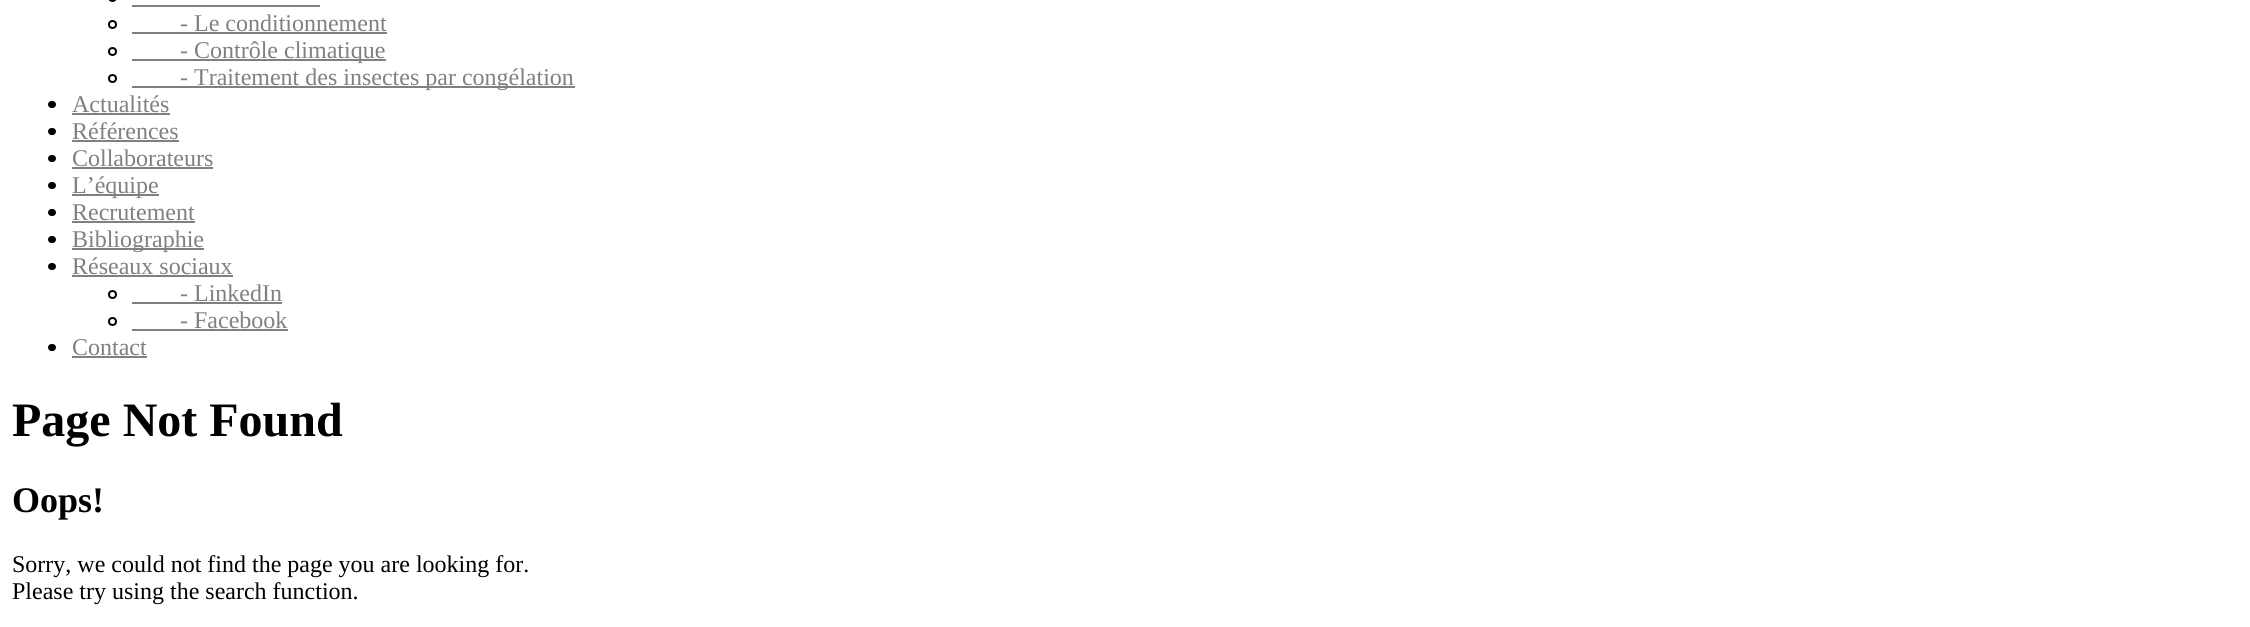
import math
import cairocffi as cairo

surface = cairo.ImageSurface(cairo.FORMAT_RGB24, 2250, 627)
cr = cairo.Context(surface)
options = cairo.FontOptions()
options.set_hint_metrics(cairo.HINT_METRICS_OFF)
options.set_hint_style(cairo.HINT_STYLE_NONE)
cr.set_font_options(options)
cr.set_miter_limit(4)


def use_color(code):
    cr.set_source_rgb(*(v / 255 for v in bytes.fromhex(code[-6:])))


def round_rect(x, y, w, h, r):
    cr.new_sub_path()
    for i, (u, v) in enumerate([(x + w - r, y + h - r), (x + r, y + h - r), (x + r, y + r), (x + w - r, y + r)]):
        cr.arc(u, v, r, i * math.pi / 2, (i + 1) * math.pi / 2)
    cr.close_path()


use_color("#ffffff")
cr.paint()
cr.arc(112.5, -2.5, 3.5, 0, 2 * math.pi)
use_color("#000000")
cr.stroke()
use_color("#808080")
cr.rectangle(132, 5, 188, 2)
cr.fill()
cr.arc(112.5, 24.5, 3.5, 0, 2 * math.pi)
use_color("#000000")
cr.stroke()
cr.select_font_face("Liberation Serif")
cr.set_font_size(24)
use_color("#808080")
cr.move_to(180, 31)
cr.show_text("- Le conditionnement")
cr.rectangle(132, 32, 255, 2)
cr.fill()
cr.arc(112.5, 51.5, 3.5, 0, 2 * math.pi)
use_color("#000000")
cr.stroke()
use_color("#808080")
cr.rectangle(132, 59, 254, 2)
cr.fill()
cr.move_to(180, 58)
cr.show_text("- Contrôle climatique")
cr.new_path()
cr.arc(112.5, 78.5, 3.5, 0, 2 * math.pi)
use_color("#000000")
cr.stroke()
use_color("#808080")
cr.rectangle(132, 86, 443, 2)
cr.fill()
cr.move_to(180, 85)
cr.show_text("- Traitement des insectes par congélation")
use_color("#000000")
round_rect(48, 101, 8, 7, 3.5)
cr.fill()
use_color("#808080")
cr.move_to(72, 112)
cr.show_text("Actualités")
cr.rectangle(72, 113, 98, 2)
cr.fill()
use_color("#000000")
round_rect(48, 128, 8, 7, 3.5)
cr.fill()
use_color("#808080")
cr.move_to(72, 139)
cr.show_text("Références")
cr.rectangle(72, 140, 107, 2)
cr.fill()
use_color("#000000")
round_rect(48, 155, 8, 7, 3.5)
cr.fill()
use_color("#808080")
cr.move_to(72, 166)
cr.show_text("Collaborateurs")
cr.rectangle(72, 167, 141, 2)
cr.fill()
use_color("#000000")
round_rect(48, 182, 8, 7, 3.5)
cr.fill()
use_color("#808080")
cr.rectangle(72, 194, 87, 2)
cr.fill()
cr.move_to(72, 193)
cr.show_text("L’équipe")
use_color("#000000")
round_rect(48, 209, 8, 7, 3.5)
cr.fill()
use_color("#808080")
cr.move_to(72, 220)
cr.show_text("Recrutement")
cr.rectangle(72, 221, 123, 2)
cr.fill()
use_color("#000000")
round_rect(48, 236, 8, 7, 3.5)
cr.fill()
use_color("#808080")
cr.rectangle(72, 248, 132, 2)
cr.fill()
cr.move_to(72, 247)
cr.show_text("Bibliographie")
use_color("#000000")
round_rect(48, 263, 8, 7, 3.5)
cr.fill()
use_color("#808080")
cr.move_to(72, 274)
cr.show_text("Réseaux sociaux")
cr.rectangle(72, 275, 161, 2)
cr.fill()
cr.arc(112.5, 294.5, 3.5, 0, 2 * math.pi)
use_color("#000000")
cr.stroke()
use_color("#808080")
cr.move_to(180, 301)
cr.show_text("- LinkedIn")
cr.rectangle(132, 302, 150, 2)
cr.fill()
cr.arc(112.5, 321.5, 3.5, 0, 2 * math.pi)
use_color("#000000")
cr.stroke()
use_color("#808080")
cr.move_to(180, 328)
cr.show_text("- Facebook")
cr.rectangle(132, 329, 156, 2)
cr.fill()
use_color("#000000")
round_rect(48, 344, 8, 7, 3.5)
cr.fill()
use_color("#808080")
cr.move_to(72, 355)
cr.show_text("Contact")
cr.rectangle(72, 356, 75, 2)
cr.fill()
cr.select_font_face("Liberation Serif", cairo.FONT_SLANT_NORMAL, cairo.FONT_WEIGHT_BOLD)
cr.set_font_size(48)
use_color("#000000")
cr.move_to(12, 436)
cr.show_text("Page Not Found")
cr.set_font_size(36)
cr.move_to(12, 512)
cr.show_text("Oops!")
cr.select_font_face("Liberation Serif")
cr.set_font_size(24)
cr.move_to(12, 572)
cr.show_text("Sorry, we could not find the page you are looking for.")
cr.move_to(12, 599)
cr.show_text("Please try using the search function.")
surface.write_to_png("result.png")
